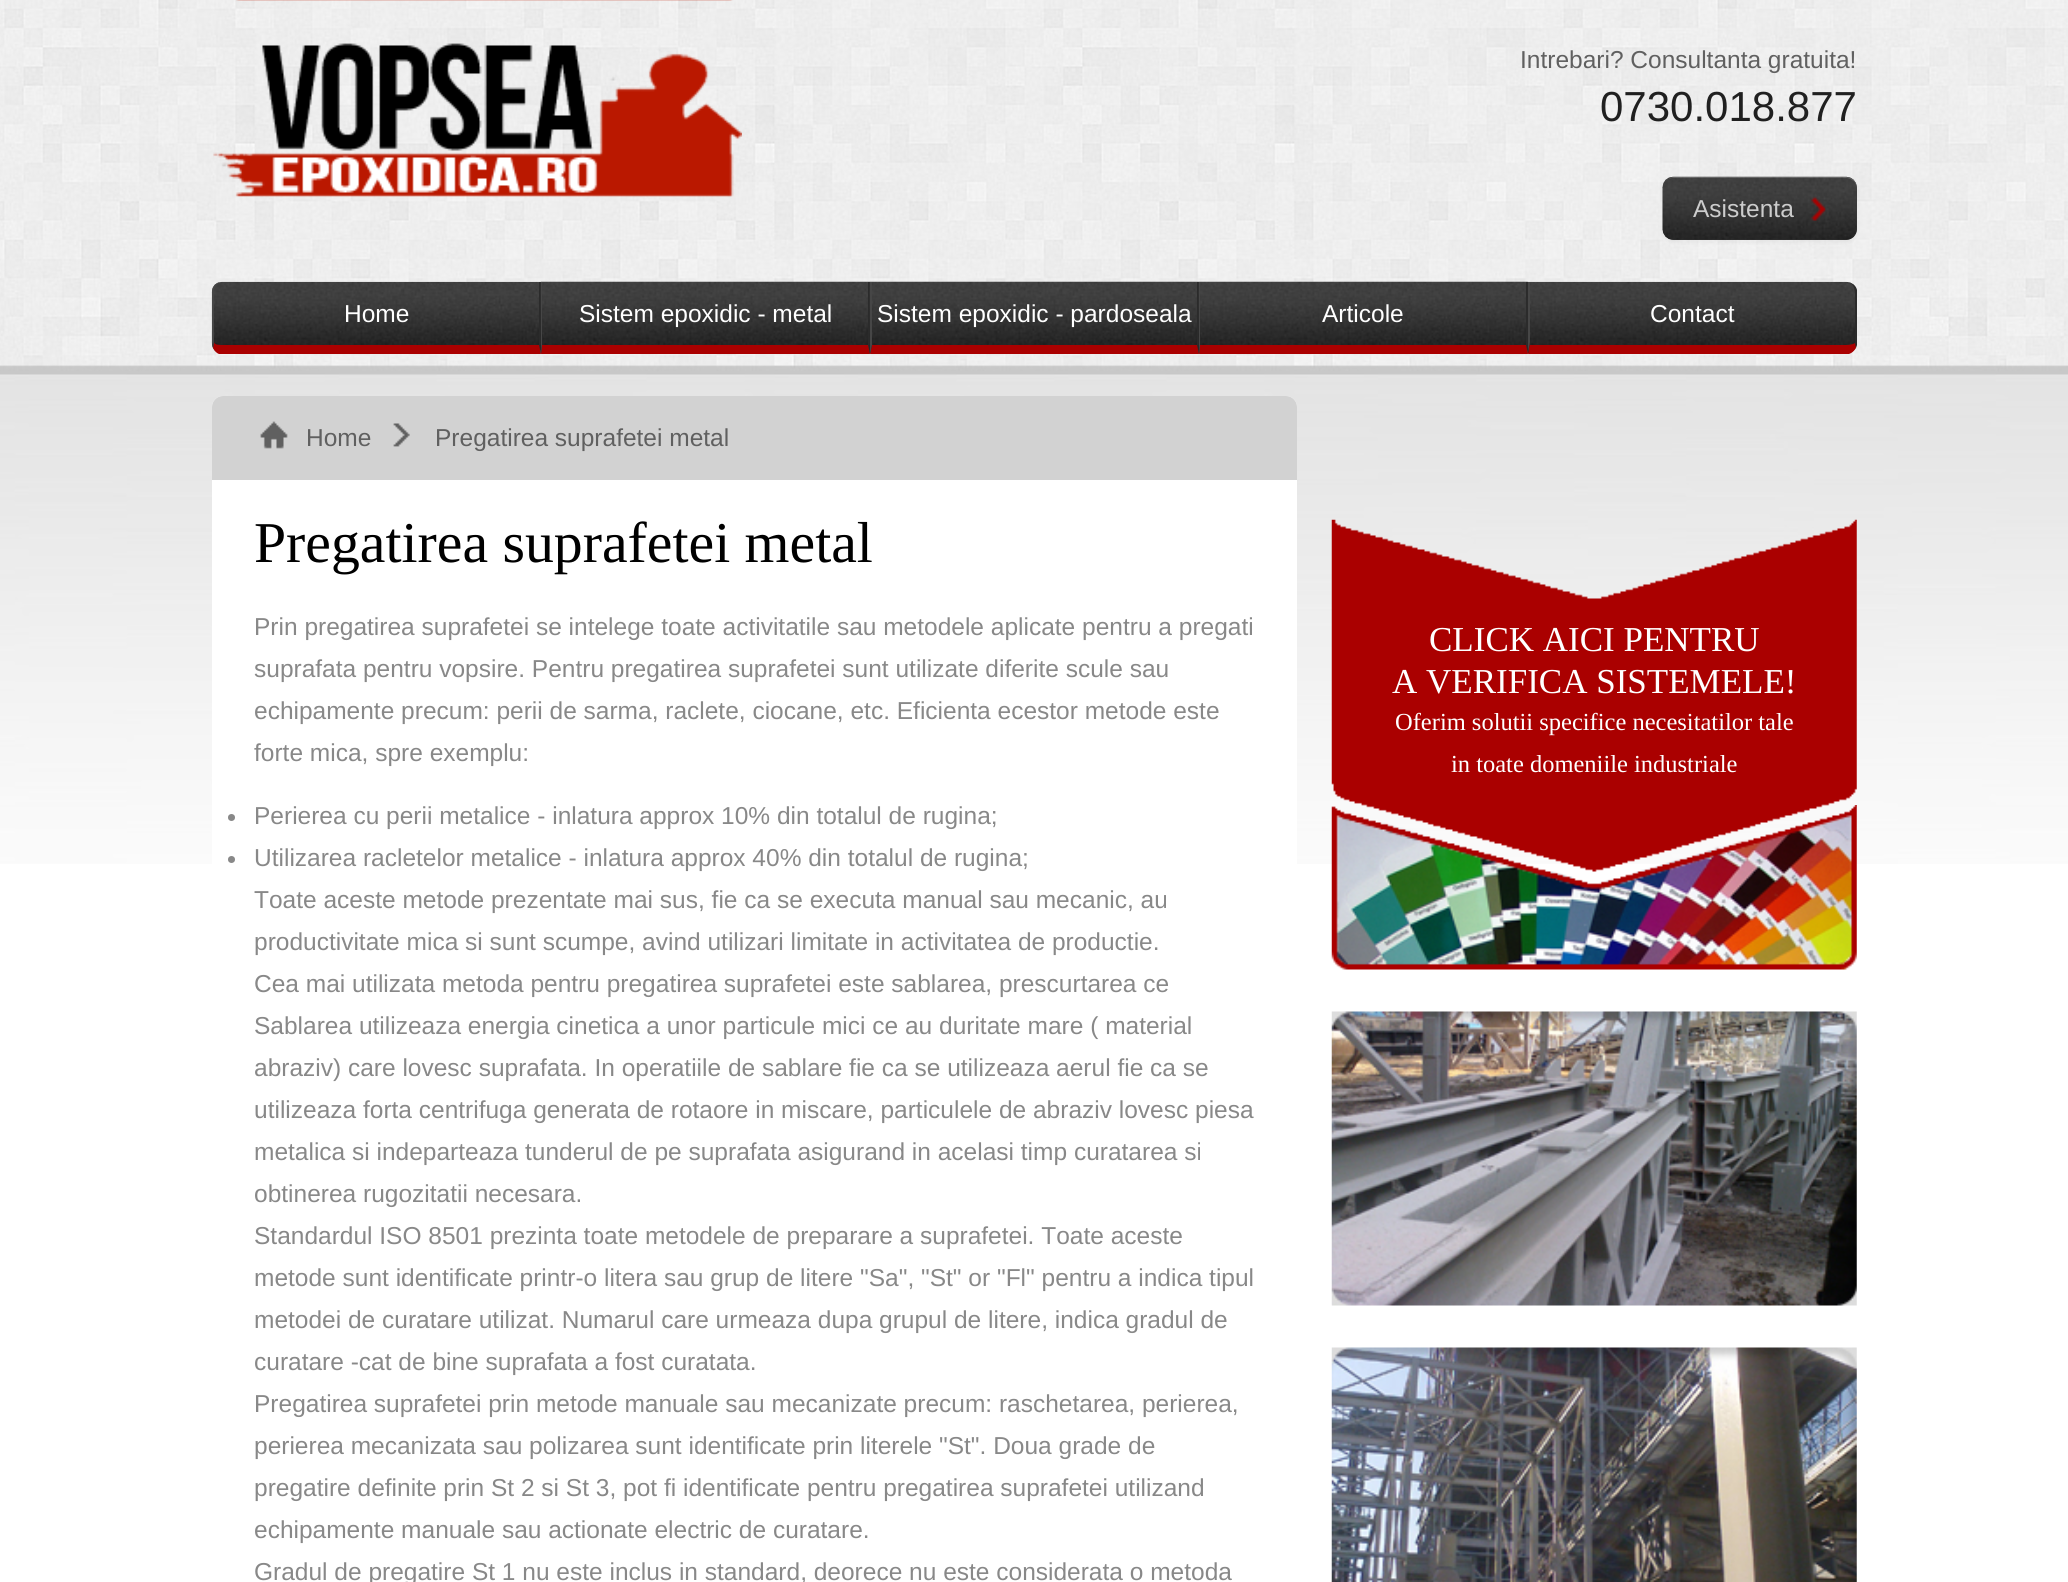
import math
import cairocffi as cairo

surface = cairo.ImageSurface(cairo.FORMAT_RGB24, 2068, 1582)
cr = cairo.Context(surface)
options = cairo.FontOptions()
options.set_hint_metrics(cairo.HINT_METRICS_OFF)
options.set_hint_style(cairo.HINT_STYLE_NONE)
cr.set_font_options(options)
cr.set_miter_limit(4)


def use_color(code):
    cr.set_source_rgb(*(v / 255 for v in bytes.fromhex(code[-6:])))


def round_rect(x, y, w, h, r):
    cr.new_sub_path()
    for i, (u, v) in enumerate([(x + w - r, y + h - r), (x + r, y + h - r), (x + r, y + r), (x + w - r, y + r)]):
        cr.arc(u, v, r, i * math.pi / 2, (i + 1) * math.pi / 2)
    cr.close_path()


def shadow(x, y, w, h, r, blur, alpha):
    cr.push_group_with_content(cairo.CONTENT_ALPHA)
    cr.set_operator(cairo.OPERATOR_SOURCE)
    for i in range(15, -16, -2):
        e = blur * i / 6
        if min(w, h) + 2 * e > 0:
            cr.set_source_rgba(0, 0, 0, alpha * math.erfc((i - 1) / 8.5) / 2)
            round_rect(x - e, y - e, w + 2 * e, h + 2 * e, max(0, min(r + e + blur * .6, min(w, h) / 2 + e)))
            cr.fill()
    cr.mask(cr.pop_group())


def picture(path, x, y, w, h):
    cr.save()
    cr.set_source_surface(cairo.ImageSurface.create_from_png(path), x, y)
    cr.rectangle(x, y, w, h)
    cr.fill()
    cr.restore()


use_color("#ffffff")
cr.paint()
picture("img1.png", 0, 0, 2068, 864)
picture("img2.png", 213, 0, 529, 197)
cr.select_font_face("Liberation Sans")
cr.set_font_size(24.5)
use_color("#606060")
cr.move_to(1520, 68)
cr.show_text("Intrebari? Consultanta gratuita!")
cr.set_font_size(42)
use_color("#202020")
cr.move_to(1600, 121)
cr.show_text("0730.018.877")
use_color("#000000")
shadow(1663, 179, 194, 63, 11, 2, 0.05)
use_color("#3b3b3b")
round_rect(1663, 177, 194, 63, 11)
cr.fill()
picture("img3.png", 1662, 176, 195, 64)
cr.set_source_rgba(1, 1, 1, 0.2)
cr.new_path()
cr.move_to(1673, 178)
cr.line_to(1846, 178)
cr.curve_to(1852, 178, 1857, 183, 1857, 189)
cr.line_to(1857, 188)
cr.curve_to(1857, 182, 1852, 177, 1846, 177)
cr.line_to(1674, 177)
cr.curve_to(1671, 177, 1668, 179, 1666, 181)
cr.curve_to(1668, 179, 1670, 178, 1673, 178)
cr.close_path()
cr.fill()
cr.set_font_size(24.5)
use_color("#cccccc")
cr.move_to(1693, 217)
cr.show_text("Asistenta")
picture("img4.png", 1811, 197, 15, 24)
picture("img5.png", 211, 281, 330, 73)
use_color("#2b2b2b")
cr.new_path()
cr.move_to(541, 282)
cr.line_to(541, 354)
cr.line_to(539, 345)
cr.line_to(539, 282)
cr.close_path()
cr.fill()
use_color("#aa0000")
cr.new_path()
cr.move_to(541, 354)
cr.line_to(219, 354)
cr.curve_to(216, 353, 214, 350, 213, 348)
cr.line_to(214, 342)
cr.curve_to(214, 345, 220, 345, 222, 345)
cr.line_to(539, 345)
cr.close_path()
cr.fill()
use_color("#464646")
cr.new_path()
cr.move_to(222, 282)
cr.curve_to(217, 282, 214, 286, 214, 292)
cr.line_to(214, 342)
cr.line_to(213, 348)
cr.line_to(212, 343)
cr.line_to(212, 292)
cr.curve_to(212, 286, 216, 282, 222, 282)
cr.close_path()
cr.fill()
use_color("#ffffff")
cr.move_to(344, 322)
cr.show_text("Home")
picture("img6.png", 540, 281, 330, 73)
use_color("#2b2b2b")
cr.new_path()
cr.move_to(870, 282)
cr.line_to(870, 354)
cr.line_to(868, 345)
cr.line_to(868, 282)
cr.close_path()
cr.fill()
use_color("#aa0000")
cr.new_path()
cr.move_to(870, 354)
cr.line_to(541, 354)
cr.line_to(542, 345)
cr.line_to(868, 345)
cr.close_path()
cr.fill()
use_color("#464646")
cr.new_path()
cr.move_to(541, 354)
cr.line_to(541, 282)
cr.line_to(542, 282)
cr.line_to(542, 345)
cr.close_path()
cr.fill()
use_color("#ffffff")
cr.move_to(579, 322)
cr.show_text("Sistem epoxidic - metal")
picture("img7.png", 869, 281, 330, 73)
use_color("#2b2b2b")
cr.new_path()
cr.move_to(1199, 282)
cr.line_to(1199, 354)
cr.line_to(1197, 345)
cr.line_to(1197, 282)
cr.close_path()
cr.fill()
use_color("#aa0000")
cr.new_path()
cr.move_to(1199, 354)
cr.line_to(870, 354)
cr.line_to(872, 345)
cr.line_to(1197, 345)
cr.close_path()
cr.fill()
use_color("#464646")
cr.new_path()
cr.move_to(870, 354)
cr.line_to(870, 282)
cr.line_to(872, 282)
cr.line_to(872, 345)
cr.close_path()
cr.fill()
use_color("#ffffff")
cr.move_to(877, 322)
cr.show_text("Sistem epoxidic - pardoseala")
picture("img8.png", 1198, 281, 330, 73)
use_color("#2b2b2b")
cr.new_path()
cr.move_to(1528, 282)
cr.line_to(1528, 354)
cr.line_to(1526, 345)
cr.line_to(1526, 282)
cr.close_path()
cr.fill()
use_color("#aa0000")
cr.new_path()
cr.move_to(1528, 354)
cr.line_to(1199, 354)
cr.line_to(1200, 345)
cr.line_to(1526, 345)
cr.close_path()
cr.fill()
use_color("#464646")
cr.new_path()
cr.move_to(1199, 354)
cr.line_to(1199, 282)
cr.line_to(1200, 282)
cr.line_to(1200, 345)
cr.close_path()
cr.fill()
use_color("#ffffff")
cr.move_to(1322, 322)
cr.show_text("Articole")
picture("img9.png", 1527, 281, 330, 73)
use_color("#2b2b2b")
cr.new_path()
cr.move_to(1857, 345)
cr.line_to(1856, 348)
cr.line_to(1855, 343)
cr.line_to(1855, 300)
cr.curve_to(1855, 294, 1856, 282, 1846, 282)
cr.curve_to(1851, 282, 1856, 285, 1857, 290)
cr.close_path()
cr.fill()
use_color("#aa0000")
cr.new_path()
cr.move_to(1528, 354)
cr.line_to(1530, 342)
cr.line_to(1530, 345)
cr.line_to(1846, 345)
cr.curve_to(1850, 345, 1854, 344, 1855, 343)
cr.line_to(1856, 348)
cr.curve_to(1854, 351, 1852, 353, 1849, 354)
cr.close_path()
cr.fill()
use_color("#464646")
cr.new_path()
cr.move_to(1528, 282)
cr.line_to(1530, 282)
cr.line_to(1530, 342)
cr.line_to(1528, 352)
cr.close_path()
cr.fill()
use_color("#ffffff")
cr.move_to(1650, 322)
cr.show_text("Contact")
round_rect(212, 396, 1085, 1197, 11)
cr.fill()
use_color("#d2d2d2")
cr.new_path()
cr.move_to(223, 396)
cr.line_to(1286, 396)
cr.curve_to(1292, 396, 1297, 401, 1297, 407)
cr.line_to(1297, 480)
cr.line_to(212, 480)
cr.line_to(212, 407)
cr.curve_to(212, 401, 217, 396, 223, 396)
cr.close_path()
cr.fill()
picture("img10.png", 260, 421, 28, 28)
use_color("#606060")
cr.move_to(306, 446)
cr.show_text("Home")
picture("img11.png", 393, 423, 17, 24)
cr.move_to(435, 446)
cr.show_text("Pregatirea suprafetei metal")
cr.select_font_face("Liberation Serif")
cr.set_font_size(57.75)
use_color("#000000")
cr.move_to(254, 562)
cr.show_text("Pregatirea suprafetei metal")
cr.select_font_face("Liberation Sans")
cr.set_font_size(24.5)
use_color("#888888")
cr.move_to(254, 635)
cr.show_text("Prin pregatirea suprafetei se intelege toate activitatile sau metodele aplicate pentru a pregati")
cr.move_to(254, 677)
cr.show_text("suprafata pentru vopsire. Pentru pregatirea suprafetei sunt utilizate diferite scule sau")
cr.move_to(254, 719)
cr.show_text("echipamente precum: perii de sarma, raclete, ciocane, etc. Eficienta ecestor metode este")
cr.move_to(254, 761)
cr.show_text("forte mica, spre exemplu:")
cr.new_path()
cr.arc(231.5, 817.5, 3.5, 0, 2 * math.pi)
cr.fill()
cr.move_to(254, 824)
cr.show_text("Perierea cu perii metalice - inlatura approx 10% din totalul de rugina;")
cr.new_path()
cr.arc(231.5, 859.5, 3.5, 0, 2 * math.pi)
cr.fill()
cr.move_to(254, 866)
cr.show_text("Utilizarea racletelor metalice - inlatura approx 40% din totalul de rugina;")
cr.move_to(254, 908)
cr.show_text("Toate aceste metode prezentate mai sus, fie ca se executa manual sau mecanic, au")
cr.move_to(254, 950)
cr.show_text("productivitate mica si sunt scumpe, avind utilizari limitate in activitatea de productie.")
cr.move_to(254, 992)
cr.show_text("Cea mai utilizata metoda pentru pregatirea suprafetei este sablarea, prescurtarea ce")
cr.move_to(254, 1034)
cr.show_text("Sablarea utilizeaza energia cinetica a unor particule mici ce au duritate mare ( material")
cr.move_to(254, 1076)
cr.show_text("abraziv) care lovesc suprafata. In operatiile de sablare fie ca se utilizeaza aerul fie ca se")
cr.move_to(254, 1118)
cr.show_text("utilizeaza forta centrifuga generata de rotaore in miscare, particulele de abraziv lovesc piesa")
cr.move_to(254, 1160)
cr.show_text("metalica si indeparteaza tunderul de pe suprafata asigurand in acelasi timp curatarea si")
cr.move_to(254, 1202)
cr.show_text("obtinerea rugozitatii necesara.")
cr.move_to(254, 1244)
cr.show_text("Standardul ISO 8501 prezinta toate metodele de preparare a suprafetei. Toate aceste")
cr.move_to(254, 1286)
cr.show_text("metode sunt identificate printr-o litera sau grup de litere \"Sa\", \"St\" or \"Fl\" pentru a indica tipul")
cr.move_to(254, 1328)
cr.show_text("metodei de curatare utilizat. Numarul care urmeaza dupa grupul de litere, indica gradul de")
cr.move_to(254, 1370)
cr.show_text("curatare -cat de bine suprafata a fost curatata.")
cr.move_to(254, 1412)
cr.show_text("Pregatirea suprafetei prin metode manuale sau mecanizate precum: raschetarea, perierea,")
cr.move_to(254, 1454)
cr.show_text("perierea mecanizata sau polizarea sunt identificate prin literele \"St\". Doua grade de")
cr.move_to(254, 1496)
cr.show_text("pregatire definite prin St 2 si St 3, pot fi identificate pentru pregatirea suprafetei utilizand")
cr.move_to(254, 1538)
cr.show_text("echipamente manuale sau actionate electric de curatare.")
cr.move_to(254, 1580)
cr.show_text("Gradul de pregatire St 1 nu este inclus in standard, deorece nu este considerata o metoda")
picture("img12.png", 1331, 519, 526, 353)
cr.select_font_face("Liberation Serif")
cr.set_font_size(35)
use_color("#ffffff")
cr.move_to(1429, 651)
cr.show_text("CLICK AICI PENTRU")
cr.move_to(1392, 693)
cr.show_text("A VERIFICA SISTEMELE!")
cr.set_font_size(24.5)
cr.move_to(1395, 730)
cr.show_text("Oferim solutii specifice necesitatilor tale")
cr.move_to(1451, 772)
cr.show_text("in toate domeniile industriale")
picture("img13.png", 1331, 805, 526, 165)
picture("img14.png", 1331, 1011, 526, 295)
picture("img15.png", 1331, 1347, 526, 235)
surface.write_to_png("result.png")
